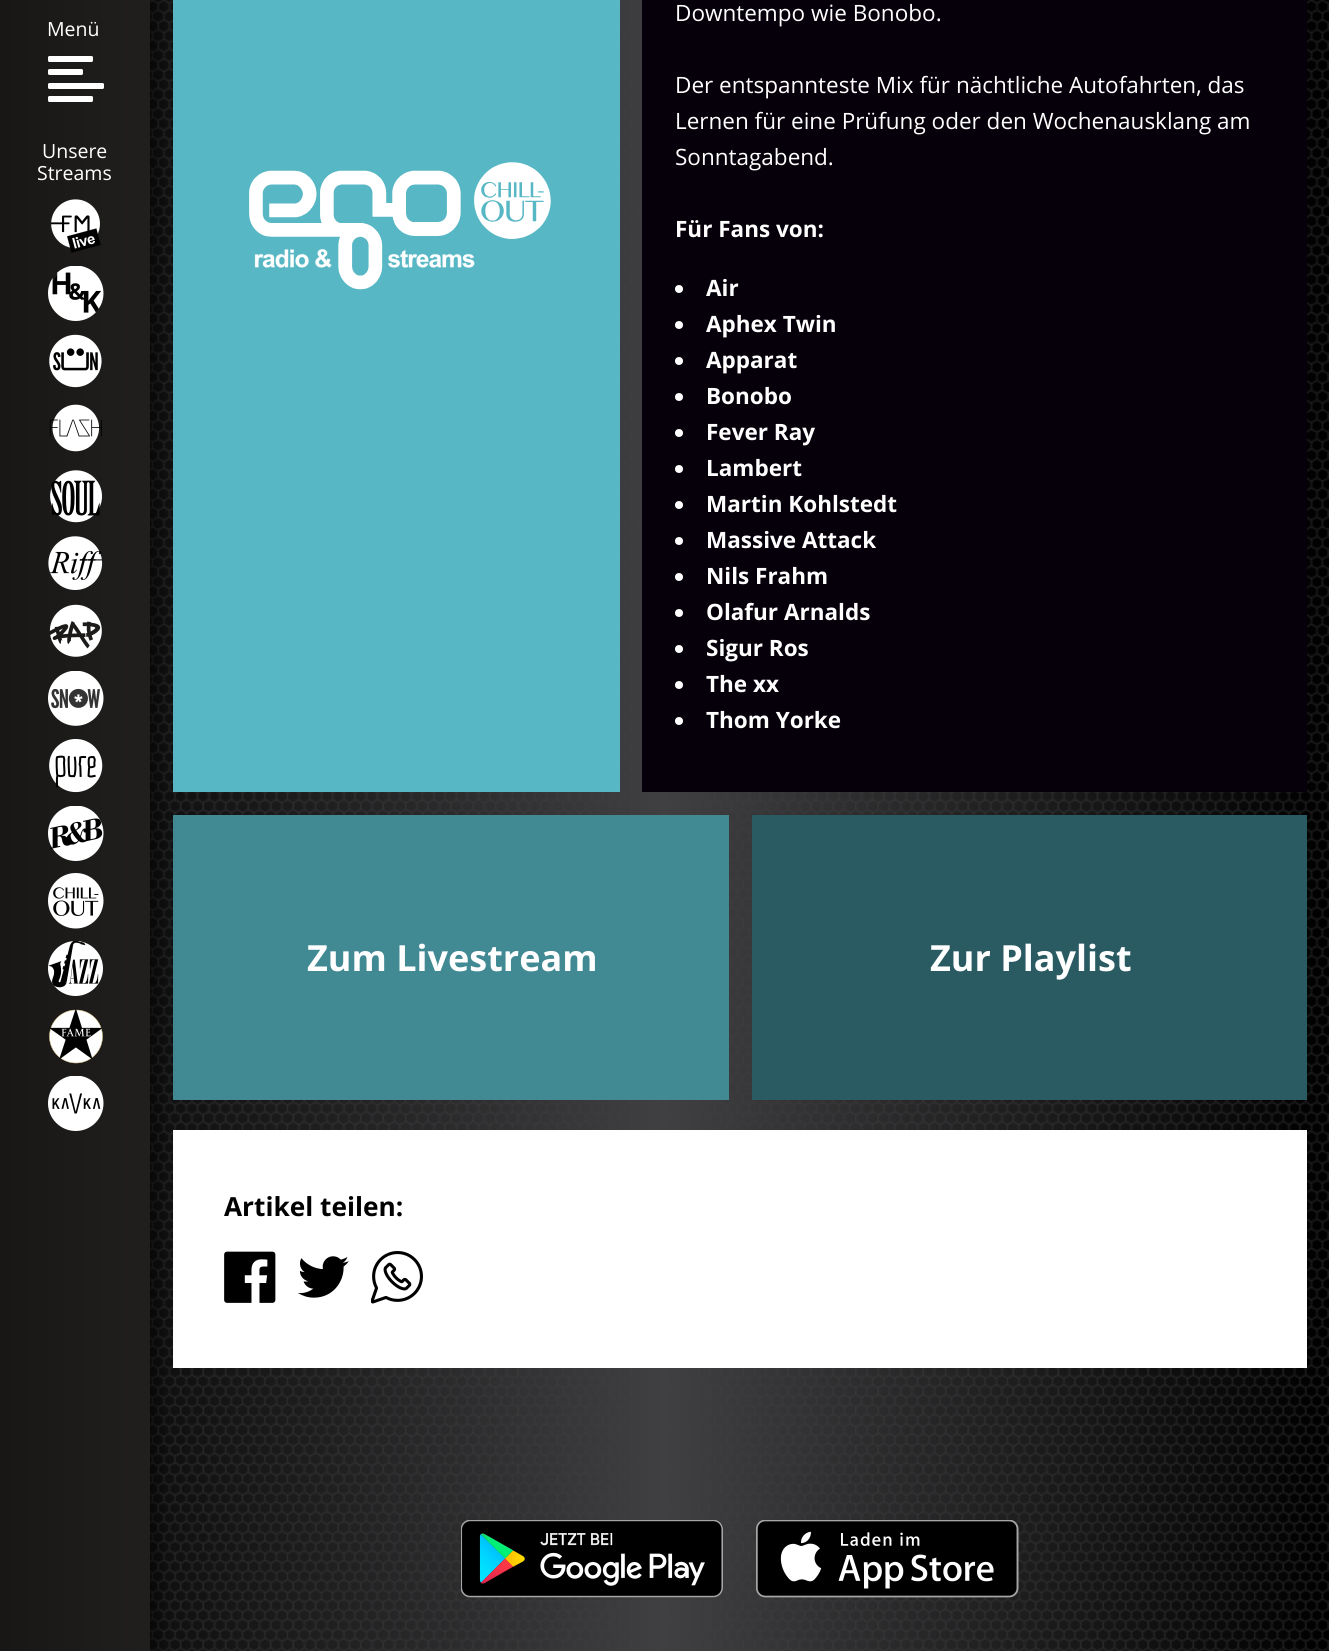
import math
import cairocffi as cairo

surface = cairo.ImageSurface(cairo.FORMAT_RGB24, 1329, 1651)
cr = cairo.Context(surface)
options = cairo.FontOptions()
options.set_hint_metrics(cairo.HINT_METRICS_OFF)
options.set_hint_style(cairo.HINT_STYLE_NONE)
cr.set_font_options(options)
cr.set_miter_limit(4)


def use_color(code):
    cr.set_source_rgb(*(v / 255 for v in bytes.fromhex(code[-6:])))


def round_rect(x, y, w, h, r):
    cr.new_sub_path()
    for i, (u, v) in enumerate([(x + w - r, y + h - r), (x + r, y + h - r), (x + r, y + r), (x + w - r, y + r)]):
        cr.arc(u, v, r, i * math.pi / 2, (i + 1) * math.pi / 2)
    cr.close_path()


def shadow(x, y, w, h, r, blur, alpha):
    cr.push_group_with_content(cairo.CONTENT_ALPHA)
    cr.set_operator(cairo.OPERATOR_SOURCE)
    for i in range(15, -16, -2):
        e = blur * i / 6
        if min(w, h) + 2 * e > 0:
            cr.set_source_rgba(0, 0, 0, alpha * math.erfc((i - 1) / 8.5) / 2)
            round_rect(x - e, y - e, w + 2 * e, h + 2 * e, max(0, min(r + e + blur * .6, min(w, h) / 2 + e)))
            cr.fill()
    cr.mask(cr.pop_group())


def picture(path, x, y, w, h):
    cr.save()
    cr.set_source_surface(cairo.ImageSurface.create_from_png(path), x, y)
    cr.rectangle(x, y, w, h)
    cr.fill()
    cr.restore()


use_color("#ffffff")
cr.paint()
gradient = cairo.LinearGradient(0, 385, 1329, 385)
gradient.add_color_stop_rgba(0, 0, 0, 0, 1)
gradient.add_color_stop_rgba(0.5, 0.251, 0.247, 0.255, 1)
gradient.add_color_stop_rgba(1, 0, 0, 0, 1)
cr.set_source(gradient)
cr.rectangle(150, 0, 1179, 1651)
cr.fill()
picture("img1.png", 150, 0, 1179, 1651)
use_color("#57b7c4")
cr.rectangle(173, 0, 447, 792)
cr.fill()
use_color("#418993")
cr.rectangle(173, 815, 556, 285)
cr.fill()
use_color("#ffffff")
cr.rectangle(173, 1130, 1134, 238)
cr.fill()
use_color("#000001")
shadow(8, 0, 150, 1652, 0, 7.5, 0.5)
gradient = cairo.LinearGradient(0, 826, 150, 826)
gradient.add_color_stop_rgba(0, 0.094, 0.09, 0.086, 1)
gradient.add_color_stop_rgba(1, 0.125, 0.122, 0.118, 1)
cr.set_source(gradient)
cr.rectangle(0, 0, 150, 1651)
cr.fill()
cr.select_font_face("Open Sans")
cr.set_font_size(19.5)
use_color("#ffffff")
cr.move_to(47, 36)
cr.show_text("Menü")
round_rect(48, 56, 45, 6, 1.5)
cr.fill()
round_rect(48, 69, 35, 6, 1.5)
cr.fill()
round_rect(48, 83, 56, 6, 1.5)
cr.fill()
round_rect(48, 96, 45, 6, 1.5)
cr.fill()
cr.move_to(42, 158)
cr.show_text("Unsere")
cr.move_to(37, 180)
cr.show_text("Streams")
picture("img2.png", 51, 199, 50, 54)
picture("img3.png", 48, 266, 56, 55)
picture("img4.png", 49, 334, 53, 54)
picture("img5.png", 49, 404, 53, 48)
picture("img6.png", 50, 470, 53, 53)
picture("img7.png", 48, 536, 55, 54)
picture("img8.png", 49, 604, 53, 53)
picture("img9.png", 48, 671, 56, 55)
picture("img10.png", 49, 739, 54, 54)
picture("img11.png", 48, 806, 56, 55)
picture("img12.png", 48, 873, 56, 56)
picture("img13.png", 48, 941, 55, 55)
picture("img14.png", 49, 1008, 54, 56)
picture("img15.png", 48, 1076, 56, 55)
picture("img16.png", 249, 162, 302, 128)
use_color("#050009")
cr.rectangle(642, 0, 665, 792)
cr.fill()
cr.set_font_size(22.5)
use_color("#ffffff")
cr.move_to(675, 21)
cr.show_text("Downtempo wie Bonobo.")
cr.move_to(675, 93)
cr.show_text("Der entspannteste Mix für nächtliche Autofahrten, das")
cr.move_to(675, 129)
cr.show_text("Lernen für eine Prüfung oder den Wochenausklang am")
cr.move_to(675, 165)
cr.show_text("Sonntagabend.")
cr.select_font_face("Open Sans", cairo.FONT_SLANT_NORMAL, cairo.FONT_WEIGHT_BOLD)
cr.move_to(675, 237)
cr.show_text("Für Fans von:")
cr.new_path()
cr.arc(679, 289, 4, 0, 2 * math.pi)
cr.fill()
cr.move_to(706, 296)
cr.show_text("Air")
cr.new_path()
cr.arc(679, 325, 4, 0, 2 * math.pi)
cr.fill()
cr.move_to(706, 332)
cr.show_text("Aphex Twin")
cr.new_path()
cr.arc(679, 361, 4, 0, 2 * math.pi)
cr.fill()
cr.move_to(706, 368)
cr.show_text("Apparat")
cr.new_path()
cr.arc(679, 397, 4, 0, 2 * math.pi)
cr.fill()
cr.move_to(706, 404)
cr.show_text("Bonobo")
cr.new_path()
cr.arc(679, 433, 4, 0, 2 * math.pi)
cr.fill()
cr.move_to(706, 440)
cr.show_text("Fever Ray")
cr.new_path()
cr.arc(679, 469, 4, 0, 2 * math.pi)
cr.fill()
cr.move_to(706, 476)
cr.show_text("Lambert")
cr.new_path()
cr.arc(679, 505, 4, 0, 2 * math.pi)
cr.fill()
cr.move_to(706, 512)
cr.show_text("Martin Kohlstedt")
cr.new_path()
cr.arc(679, 541, 4, 0, 2 * math.pi)
cr.fill()
cr.move_to(706, 548)
cr.show_text("Massive Attack")
cr.new_path()
cr.arc(679, 577, 4, 0, 2 * math.pi)
cr.fill()
cr.move_to(706, 584)
cr.show_text("Nils Frahm")
cr.new_path()
cr.arc(679, 613, 4, 0, 2 * math.pi)
cr.fill()
cr.move_to(706, 620)
cr.show_text("Olafur Arnalds")
cr.new_path()
cr.arc(679, 649, 4, 0, 2 * math.pi)
cr.fill()
cr.move_to(706, 656)
cr.show_text("Sigur Ros")
cr.new_path()
cr.arc(679, 685, 4, 0, 2 * math.pi)
cr.fill()
cr.move_to(706, 692)
cr.show_text("The xx")
cr.new_path()
cr.arc(679, 721, 4, 0, 2 * math.pi)
cr.fill()
cr.move_to(706, 728)
cr.show_text("Thom Yorke")
cr.set_font_size(36)
cr.move_to(307, 971)
cr.show_text("Zum Livestream")
use_color("#2b5b62")
cr.rectangle(752, 815, 555, 285)
cr.fill()
use_color("#ffffff")
cr.move_to(930, 971)
cr.show_text("Zur Playlist")
cr.set_font_size(26.25)
use_color("#000000")
cr.move_to(224, 1216)
cr.show_text("Artikel teilen:")
picture("img17.png", 224, 1251, 52, 52)
picture("img18.png", 298, 1256, 51, 42)
picture("img19.png", 371, 1251, 52, 53)
picture("img20.png", 461, 1520, 262, 78)
picture("img21.png", 756, 1520, 263, 78)
surface.write_to_png("result.png")
